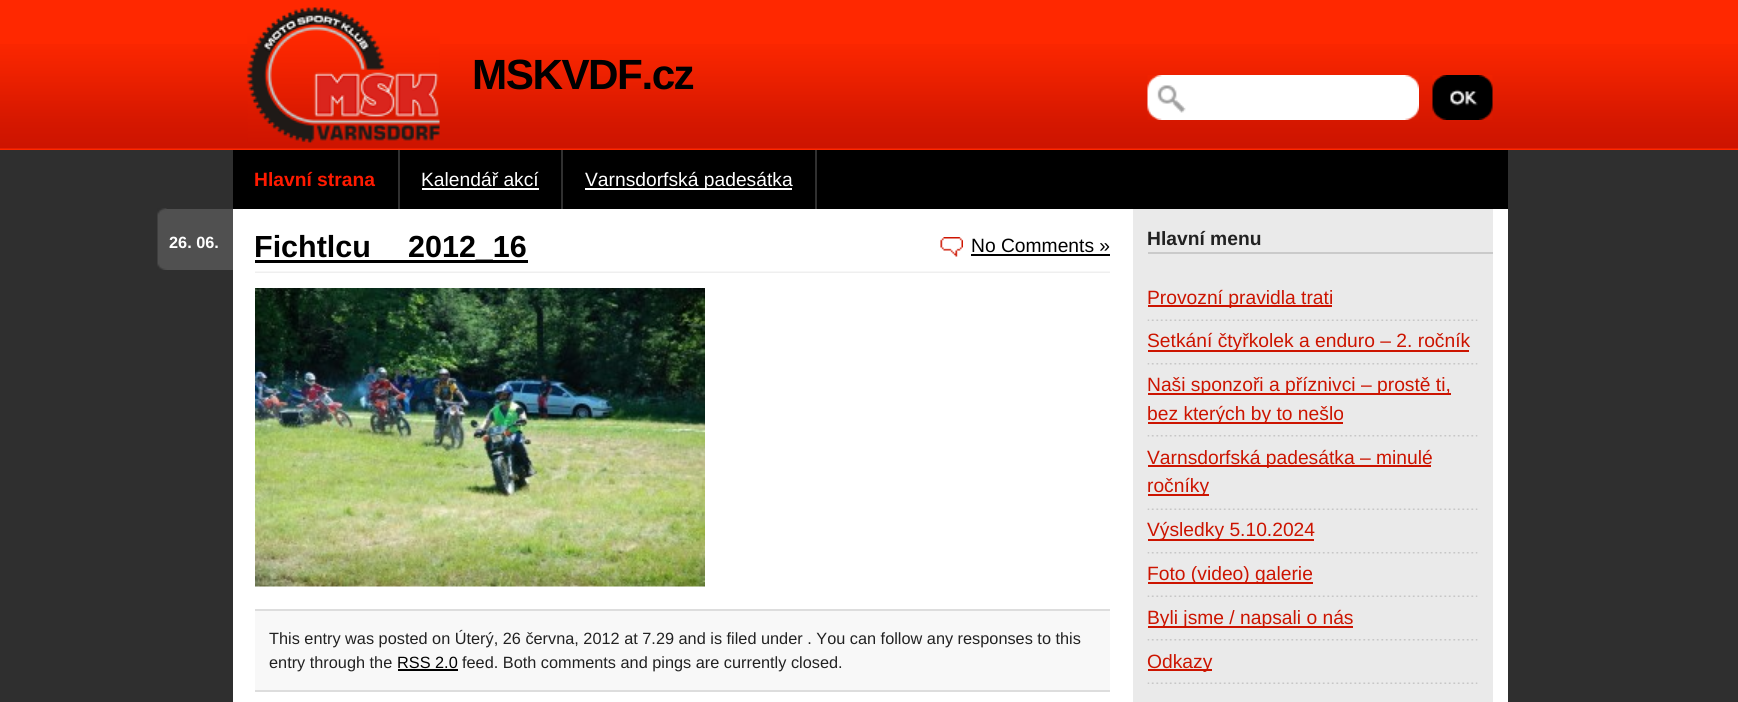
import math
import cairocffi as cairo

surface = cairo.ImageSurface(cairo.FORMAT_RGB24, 1738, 702)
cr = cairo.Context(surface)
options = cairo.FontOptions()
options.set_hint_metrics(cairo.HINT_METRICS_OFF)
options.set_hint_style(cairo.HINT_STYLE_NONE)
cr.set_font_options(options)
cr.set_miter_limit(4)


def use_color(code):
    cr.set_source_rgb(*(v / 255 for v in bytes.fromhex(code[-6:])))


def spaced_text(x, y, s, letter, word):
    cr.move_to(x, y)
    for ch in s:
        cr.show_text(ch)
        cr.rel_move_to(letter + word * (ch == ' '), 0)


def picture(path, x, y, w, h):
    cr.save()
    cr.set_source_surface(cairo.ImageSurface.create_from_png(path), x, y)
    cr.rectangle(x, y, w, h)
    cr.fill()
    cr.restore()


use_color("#2f2f2f")
cr.paint()
use_color("#ff2800")
cr.rectangle(0, 0, 1738, 150)
cr.fill()
picture("img1.png", 0, 44, 1738, 105)
picture("img2.png", 247, 7, 193, 136)
cr.select_font_face("Liberation Sans", cairo.FONT_SLANT_NORMAL, cairo.FONT_WEIGHT_BOLD)
cr.set_font_size(42.25)
use_color("#000000")
spaced_text(472, 89, "MSKVDF.cz", -1.5, 0)
picture("img3.png", 1147, 75, 272, 45)
picture("img4.png", 1432, 75, 61, 45)
use_color("#ffffff")
cr.rectangle(1493, 209, 15, 493)
cr.fill()
use_color("#eaeaea")
cr.rectangle(1133, 209, 360, 493)
cr.fill()
use_color("#000000")
cr.rectangle(233, 150, 1275, 59)
cr.fill()
use_color("#303030")
cr.rectangle(398, 150, 2, 59)
cr.fill()
cr.set_font_size(19.25)
use_color("#ff1a00")
cr.move_to(254, 186)
cr.show_text("Hlavní strana")
use_color("#303030")
cr.rectangle(561, 150, 2, 59)
cr.fill()
cr.select_font_face("Liberation Sans")
use_color("#ffffff")
cr.move_to(421, 186)
cr.show_text("Kalendář akcí")
cr.rectangle(422, 188, 117, 2)
cr.fill()
use_color("#303030")
cr.rectangle(815, 150, 2, 59)
cr.fill()
use_color("#ffffff")
cr.rectangle(585, 188, 207, 2)
cr.fill()
cr.move_to(585, 186)
cr.show_text("Varnsdorfská padesátka")
cr.rectangle(233, 209, 900, 493)
cr.fill()
use_color("#505050")
cr.rectangle(166, 209, 67, 61)
cr.fill()
picture("img5.png", 157, 208, 10, 62)
cr.select_font_face("Liberation Sans", cairo.FONT_SLANT_NORMAL, cairo.FONT_WEIGHT_BOLD)
cr.set_font_size(16.3)
use_color("#ffffff")
cr.move_to(169, 248)
cr.show_text("26. 06.")
picture("img6.png", 255, 271, 855, 2)
cr.set_font_size(30.5)
use_color("#000000")
cr.move_to(254, 257)
cr.show_text("Fichtlcu")
cr.rectangle(255, 260, 273, 3)
cr.fill()
cr.move_to(408, 257)
cr.show_text("2012_16")
picture("img7.png", 940, 237, 23, 20)
cr.select_font_face("Liberation Sans")
cr.set_font_size(19.25)
cr.move_to(971, 252)
cr.show_text("No Comments »")
cr.rectangle(971, 254, 139, 2)
cr.fill()
picture("img8.png", 255, 288, 450, 299)
use_color("#f8f8f8")
cr.rectangle(255, 611, 855, 79)
cr.fill()
use_color("#dddddd")
cr.rectangle(255, 609, 855, 2)
cr.fill()
cr.rectangle(255, 690, 855, 2)
cr.fill()
cr.set_font_size(16.3)
use_color("#222222")
cr.move_to(269, 644)
cr.show_text("This entry was posted on Úterý, 26 června, 2012 at 7.29 and is filed under . You can follow any responses to this")
cr.move_to(269, 668)
cr.show_text("entry through the")
use_color("#000000")
cr.move_to(397, 668)
cr.show_text("RSS 2.0")
cr.rectangle(398, 669, 60, 2)
cr.fill()
use_color("#222222")
cr.move_to(462, 668)
cr.show_text("feed. Both comments and pings are currently closed.")
use_color("#cacaca")
cr.rectangle(1148, 252, 345, 2)
cr.fill()
cr.select_font_face("Liberation Sans", cairo.FONT_SLANT_NORMAL, cairo.FONT_WEIGHT_BOLD)
cr.set_font_size(19.25)
use_color("#222222")
cr.move_to(1147, 245)
cr.show_text("Hlavní menu")
picture("img9.png", 1147, 319, 331, 2)
use_color("#cc1400")
cr.rectangle(1148, 305, 184, 2)
cr.fill()
cr.select_font_face("Liberation Sans")
cr.move_to(1147, 304)
cr.show_text("Provozní pravidla trati")
picture("img10.png", 1147, 363, 331, 2)
cr.rectangle(1148, 350, 321, 2)
cr.fill()
cr.move_to(1147, 347)
cr.show_text("Setkání čtyřkolek a enduro – 2. ročník")
picture("img10.png", 1147, 435, 331, 2)
cr.rectangle(1148, 393, 303, 2)
cr.fill()
cr.move_to(1147, 391)
cr.show_text("Naši sponzoři a příznivci – prostě ti,")
cr.rectangle(1148, 422, 195, 2)
cr.fill()
cr.move_to(1147, 420)
cr.show_text("bez kterých by to nešlo")
picture("img9.png", 1147, 508, 331, 2)
cr.rectangle(1148, 465, 283, 2)
cr.fill()
cr.move_to(1147, 464)
cr.show_text("Varnsdorfská padesátka – minulé")
cr.rectangle(1148, 494, 61, 2)
cr.fill()
cr.move_to(1147, 492)
cr.show_text("ročníky")
picture("img10.png", 1147, 552, 331, 2)
cr.rectangle(1148, 539, 166, 2)
cr.fill()
cr.move_to(1147, 536)
cr.show_text("Výsledky 5.10.2024")
picture("img9.png", 1147, 595, 331, 2)
cr.rectangle(1148, 582, 165, 2)
cr.fill()
cr.move_to(1147, 580)
cr.show_text("Foto (video) galerie")
picture("img10.png", 1147, 639, 331, 2)
cr.rectangle(1148, 626, 205, 2)
cr.fill()
cr.move_to(1147, 624)
cr.show_text("Byli jsme / napsali o nás")
picture("img9.png", 1147, 682, 331, 2)
cr.rectangle(1148, 669, 64, 2)
cr.fill()
cr.move_to(1147, 668)
cr.show_text("Odkazy")
surface.write_to_png("result.png")
